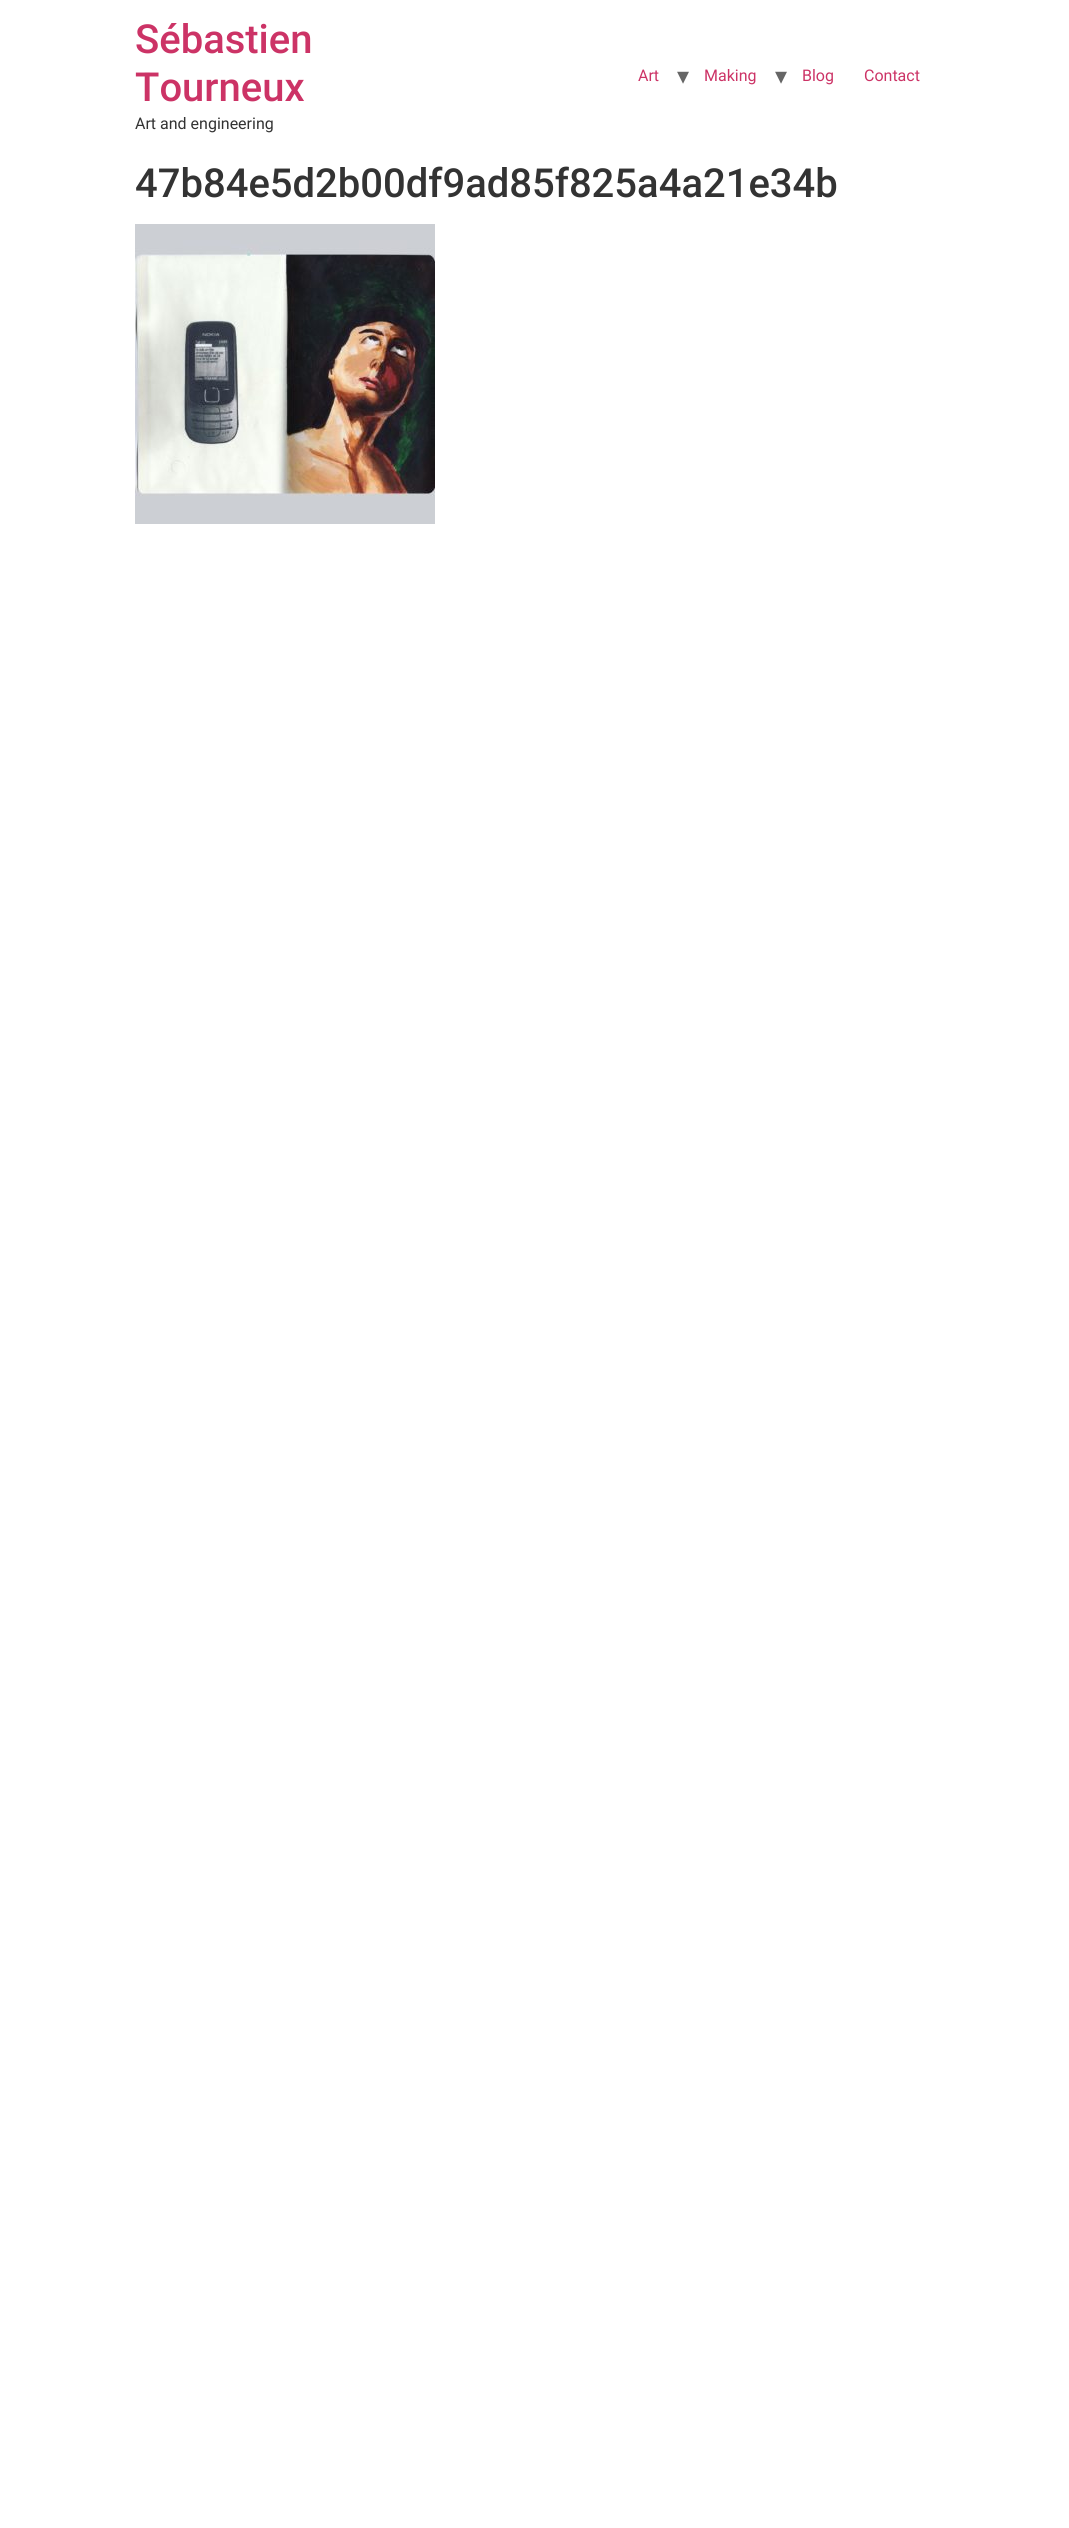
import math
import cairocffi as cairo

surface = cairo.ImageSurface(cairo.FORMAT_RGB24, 1069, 2528)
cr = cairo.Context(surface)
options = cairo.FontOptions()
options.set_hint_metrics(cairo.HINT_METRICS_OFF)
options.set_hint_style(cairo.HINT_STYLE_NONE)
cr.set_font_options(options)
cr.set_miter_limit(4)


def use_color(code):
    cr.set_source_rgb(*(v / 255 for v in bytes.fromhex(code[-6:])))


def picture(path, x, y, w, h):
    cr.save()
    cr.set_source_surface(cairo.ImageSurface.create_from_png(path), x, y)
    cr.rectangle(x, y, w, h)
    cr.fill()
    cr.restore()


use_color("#ffffff")
cr.paint()
cr.select_font_face("Roboto Medium")
cr.set_font_size(40)
use_color("#cc3366")
cr.move_to(135, 53)
cr.show_text("Sébastien")
cr.move_to(135, 101)
cr.show_text("Tourneux")
cr.select_font_face("Roboto")
cr.set_font_size(16)
use_color("#333333")
cr.move_to(135, 129)
cr.show_text("Art and engineering")
use_color("#cc3366")
cr.move_to(638, 81)
cr.show_text("Art")
cr.select_font_face("DejaVu Sans")
cr.set_font_size(24)
use_color("#666666")
cr.move_to(677, 84)
cr.show_text("▾")
cr.select_font_face("Roboto")
cr.set_font_size(16)
use_color("#cc3366")
cr.move_to(704, 81)
cr.show_text("Making")
cr.select_font_face("DejaVu Sans")
cr.set_font_size(24)
use_color("#666666")
cr.move_to(775, 84)
cr.show_text("▾")
cr.select_font_face("Roboto")
cr.set_font_size(16)
use_color("#cc3366")
cr.move_to(802, 81)
cr.show_text("Blog")
cr.move_to(864, 81)
cr.show_text("Contact")
cr.select_font_face("Roboto Medium")
cr.set_font_size(40)
use_color("#333333")
cr.move_to(135, 197)
cr.show_text("47b84e5d2b00df9ad85f825a4a21e34b")
picture("img1.png", 135, 224, 300, 300)
surface.write_to_png("result.png")
